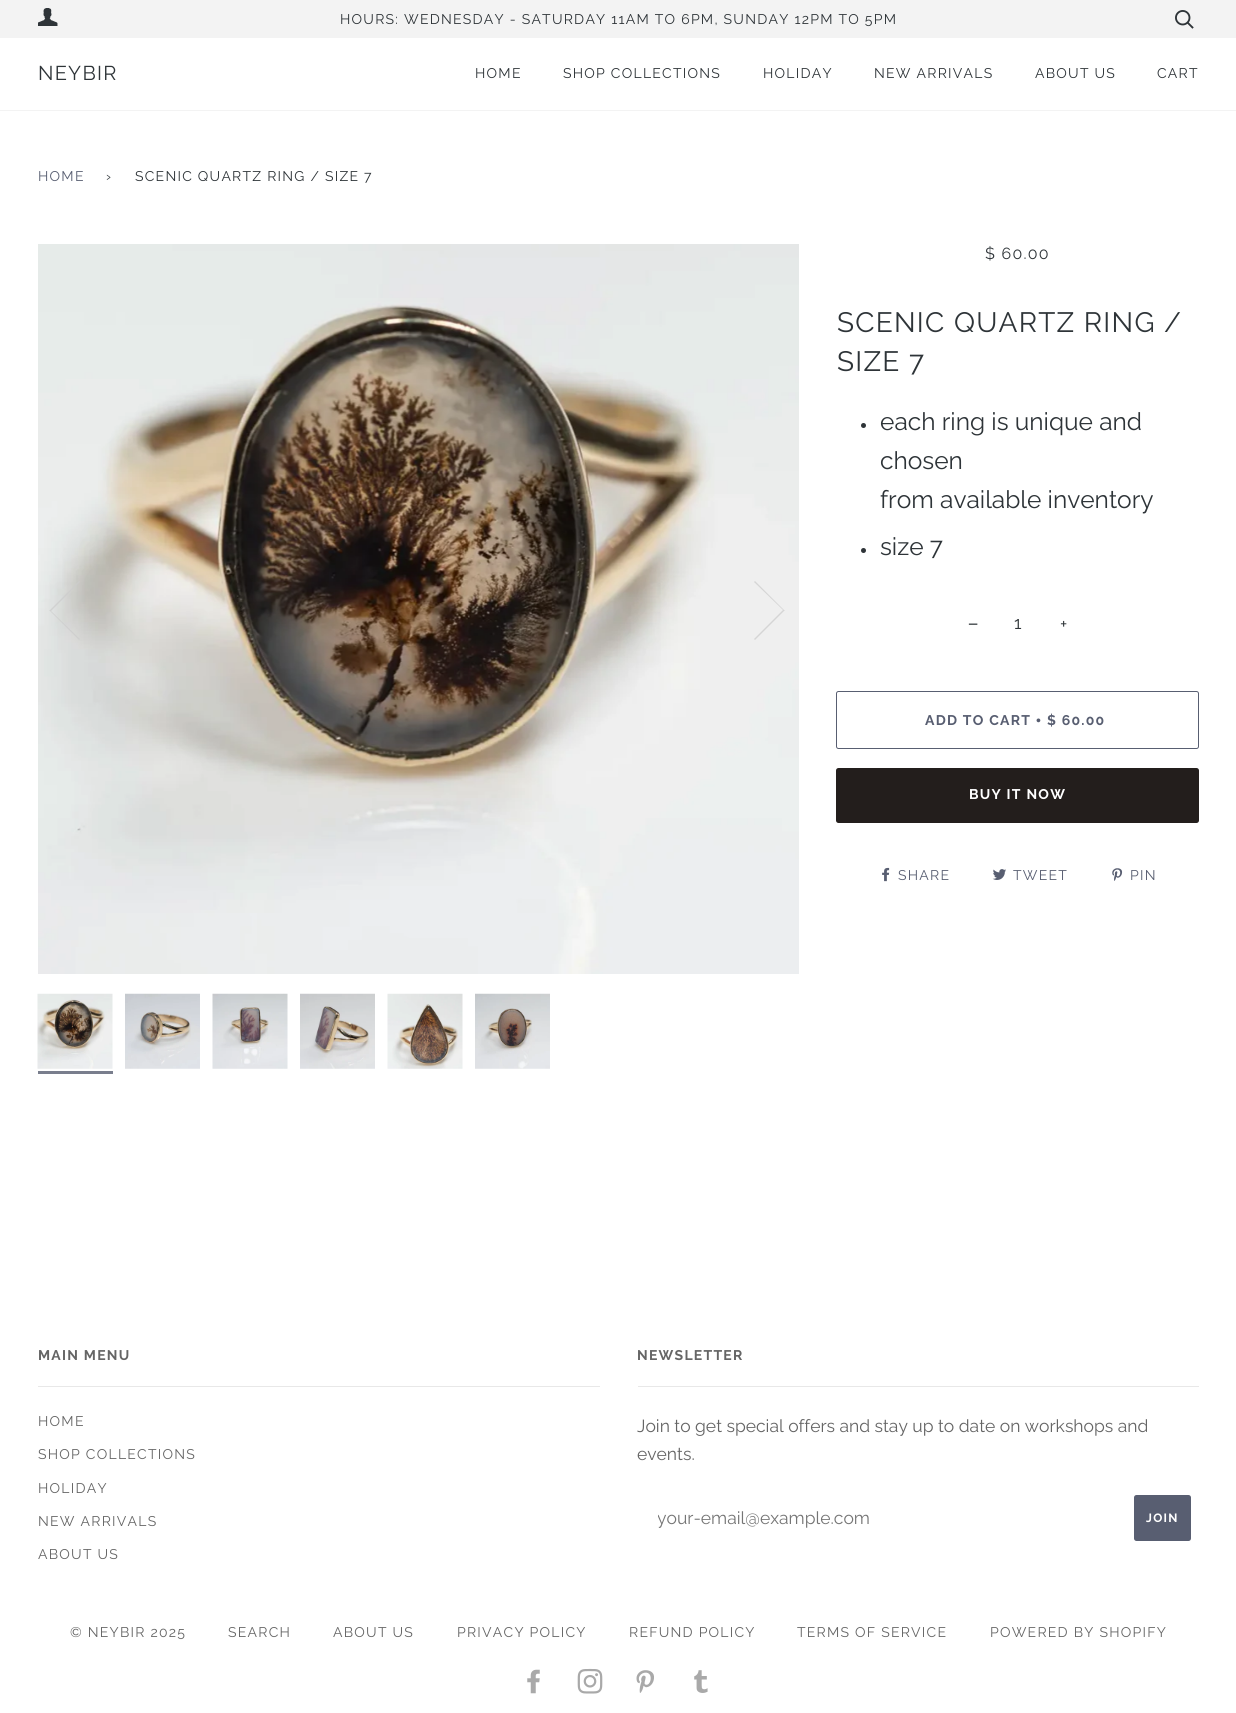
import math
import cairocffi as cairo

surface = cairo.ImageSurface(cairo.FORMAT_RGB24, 1236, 1713)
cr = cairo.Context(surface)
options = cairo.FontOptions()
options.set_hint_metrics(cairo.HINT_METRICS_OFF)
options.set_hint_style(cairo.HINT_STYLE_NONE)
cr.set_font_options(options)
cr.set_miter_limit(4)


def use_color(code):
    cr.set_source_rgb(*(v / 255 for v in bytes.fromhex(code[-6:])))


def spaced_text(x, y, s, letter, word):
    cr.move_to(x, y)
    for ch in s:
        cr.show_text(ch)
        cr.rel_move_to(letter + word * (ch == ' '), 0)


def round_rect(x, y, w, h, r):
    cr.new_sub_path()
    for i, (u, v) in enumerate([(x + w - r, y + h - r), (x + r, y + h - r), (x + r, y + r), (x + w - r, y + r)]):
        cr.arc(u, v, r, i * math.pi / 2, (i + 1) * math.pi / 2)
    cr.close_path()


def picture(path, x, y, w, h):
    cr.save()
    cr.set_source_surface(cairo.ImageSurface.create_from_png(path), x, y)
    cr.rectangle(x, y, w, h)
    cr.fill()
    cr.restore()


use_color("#ffffff")
cr.paint()
use_color("#f3f3f3")
cr.rectangle(0, 0, 1236, 38)
cr.fill()
picture("img1.png", 38, 8, 20, 18)
cr.select_font_face("Raleway")
cr.set_font_size(14)
use_color("#2e3438")
spaced_text(340, 24, "HOURS: WEDNESDAY - SATURDAY 11AM TO 6PM, SUNDAY 12PM TO 5PM", 1.25, 0)
picture("img2.png", 1175, 10, 19, 19)
use_color("#f3f3f3")
cr.rectangle(0, 110, 1236, 1)
cr.fill()
cr.set_font_size(20)
use_color("#2e3438")
spaced_text(38, 80, "NEYBIR", 1.25, 0)
cr.set_font_size(14)
spaced_text(475, 78, "HOME", 1.25, 0)
spaced_text(563, 78, "SHOP COLLECTIONS", 1.25, 0)
spaced_text(763, 78, "HOLIDAY", 1.25, 0)
spaced_text(874, 78, "NEW ARRIVALS", 1.25, 0)
spaced_text(1035, 78, "ABOUT US", 1.25, 0)
spaced_text(1157, 78, "CART", 1.25, 0)
use_color("#585e71")
spaced_text(38, 181, "HOME", 1.25, 0)
use_color("#2e3438")
spaced_text(106, 181, "›", 1.25, 0)
spaced_text(135, 181, "SCENIC QUARTZ RING / SIZE 7", 1.25, 0)
picture("img3.png", 38, 244, 761, 730)
cr.set_source_rgba(0.8, 0.8, 0.8, 0.75)
cr.new_path()
cr.move_to(50, 611)
cr.line_to(79, 640)
cr.line_to(80, 639)
cr.line_to(51, 611)
cr.line_to(80, 582)
cr.line_to(79, 581)
cr.line_to(49, 611)
cr.close_path()
cr.fill()
use_color("#d5d5d5")
cr.new_path()
cr.move_to(784, 610)
cr.line_to(755, 581)
cr.line_to(754, 582)
cr.line_to(783, 610)
cr.line_to(754, 639)
cr.line_to(755, 640)
cr.line_to(785, 610)
cr.close_path()
cr.fill()
picture("img4.png", 37, 993, 76, 76)
use_color("#797e8d")
cr.rectangle(38, 1071, 75, 3)
cr.fill()
picture("img5.png", 125, 993, 75, 76)
picture("img6.png", 212, 993, 76, 76)
picture("img7.png", 300, 993, 75, 76)
picture("img8.png", 387, 993, 76, 76)
picture("img9.png", 475, 993, 75, 76)
cr.set_font_size(16)
use_color("#2e3438")
spaced_text(985, 259, "$ 60.00", 1.25, 0)
cr.set_font_size(28)
spaced_text(837, 332, "SCENIC QUARTZ RING /", 1.25, 0)
spaced_text(837, 371, "SIZE 7", 1.25, 0)
cr.new_path()
cr.arc(863.5, 425.5, 2.5, 0, 2 * math.pi)
cr.fill()
cr.set_font_size(24.5)
cr.move_to(880, 430)
cr.show_text("each ring is unique and")
cr.move_to(880, 469)
cr.show_text("chosen")
cr.move_to(880, 508)
cr.show_text("from available inventory")
cr.new_path()
cr.arc(863.5, 550.5, 2.5, 0, 2 * math.pi)
cr.fill()
cr.move_to(880, 555)
cr.show_text("size 7")
cr.select_font_face("Liberation Sans")
cr.set_font_size(17.5)
cr.move_to(968, 630)
cr.show_text("−")
cr.select_font_face("Raleway")
cr.move_to(1014, 629)
cr.show_text("1")
cr.move_to(1060, 630)
cr.show_text("+")
round_rect(836.5, 691.5, 362, 57, 2)
use_color("#585e71")
cr.set_line_width(1)
cr.stroke()
cr.select_font_face("Raleway", cairo.FONT_SLANT_NORMAL, cairo.FONT_WEIGHT_BOLD)
cr.set_font_size(14)
spaced_text(925, 725, "ADD TO CART", 1.25, 0)
cr.select_font_face("Liberation Serif", cairo.FONT_SLANT_NORMAL, cairo.FONT_WEIGHT_BOLD)
spaced_text(1036, 725, "•", 1.25, 0)
cr.select_font_face("Raleway", cairo.FONT_SLANT_NORMAL, cairo.FONT_WEIGHT_BOLD)
spaced_text(1047, 725, "$ 60.00", 1.25, 0)
use_color("#231e1c")
round_rect(836, 768, 363, 55, 2.5)
cr.fill()
use_color("#ffffff")
spaced_text(969, 799, "BUY IT NOW", 1.25, 0)
picture("img10.png", 882, 867, 8, 15)
cr.select_font_face("Raleway")
use_color("#585e71")
spaced_text(898, 880, "SHARE", 1.25, 0)
picture("img11.png", 992, 869, 14, 11)
spaced_text(1013, 880, "TWEET", 1.25, 0)
picture("img12.png", 1112, 868, 11, 13)
spaced_text(1130, 880, "PIN", 1.25, 0)
cr.select_font_face("Raleway", cairo.FONT_SLANT_NORMAL, cairo.FONT_WEIGHT_BOLD)
use_color("#656565")
spaced_text(38, 1360, "MAIN MENU", 1.25, 0)
use_color("#e8e8e8")
cr.rectangle(38, 1386, 562, 1)
cr.fill()
cr.select_font_face("Raleway")
use_color("#656565")
spaced_text(38, 1426, "HOME", 1.25, 0)
spaced_text(38, 1459, "SHOP COLLECTIONS", 1.25, 0)
spaced_text(38, 1493, "HOLIDAY", 1.25, 0)
spaced_text(38, 1526, "NEW ARRIVALS", 1.25, 0)
spaced_text(38, 1559, "ABOUT US", 1.25, 0)
cr.select_font_face("Raleway", cairo.FONT_SLANT_NORMAL, cairo.FONT_WEIGHT_BOLD)
spaced_text(637, 1360, "NEWSLETTER", 1.25, 0)
use_color("#e8e8e8")
cr.rectangle(638, 1386, 561, 1)
cr.fill()
cr.select_font_face("Raleway")
cr.set_font_size(17.5)
use_color("#656565")
cr.move_to(637, 1432)
cr.show_text("Join to get special offers and stay up to date on workshops and")
cr.move_to(637, 1460)
cr.show_text("events.")
cr.save()
cr.rectangle(658, 1508, 463, 20)
cr.clip()
use_color("#757575")
cr.move_to(657, 1524)
cr.show_text("your-email@example.com")
cr.restore()
use_color("#585e71")
round_rect(1134, 1495, 57, 46, 2.5)
cr.fill()
cr.select_font_face("Raleway", cairo.FONT_SLANT_NORMAL, cairo.FONT_WEIGHT_BOLD)
cr.set_font_size(12)
use_color("#ffffff")
spaced_text(1146, 1522, "JOIN", 1.25, 0)
cr.select_font_face("Raleway")
cr.set_font_size(14)
use_color("#656565")
spaced_text(70, 1637, "© NEYBIR 2025", 1.25, 0)
spaced_text(228, 1637, "SEARCH", 1.25, 0)
spaced_text(333, 1637, "ABOUT US", 1.25, 0)
spaced_text(457, 1637, "PRIVACY POLICY", 1.25, 0)
spaced_text(629, 1637, "REFUND POLICY", 1.25, 0)
spaced_text(797, 1637, "TERMS OF SERVICE", 1.25, 0)
spaced_text(990, 1637, "POWERED BY SHOPIFY", 1.25, 0)
picture("img13.png", 527, 1669, 13, 25)
picture("img14.png", 577, 1668, 26, 26)
picture("img15.png", 636, 1670, 18, 23)
picture("img16.png", 694, 1670, 14, 23)
surface.write_to_png("result.png")
